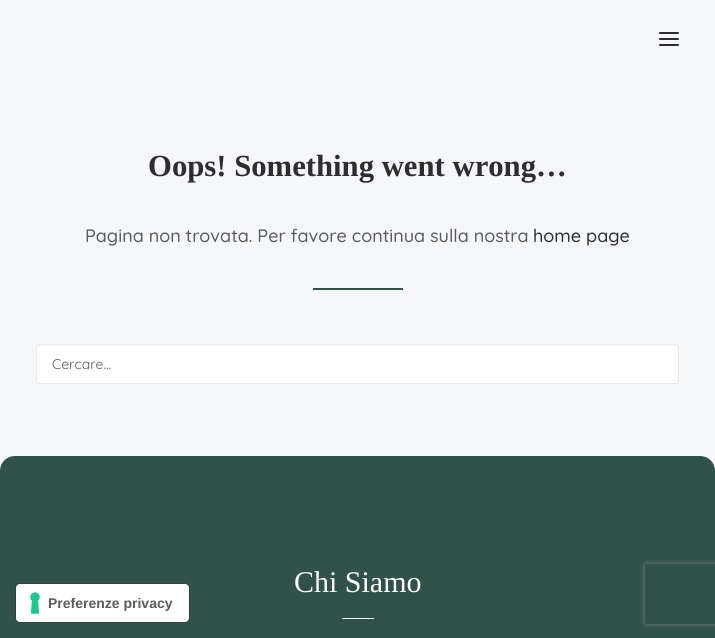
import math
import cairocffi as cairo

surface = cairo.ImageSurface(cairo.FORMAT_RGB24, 715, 638)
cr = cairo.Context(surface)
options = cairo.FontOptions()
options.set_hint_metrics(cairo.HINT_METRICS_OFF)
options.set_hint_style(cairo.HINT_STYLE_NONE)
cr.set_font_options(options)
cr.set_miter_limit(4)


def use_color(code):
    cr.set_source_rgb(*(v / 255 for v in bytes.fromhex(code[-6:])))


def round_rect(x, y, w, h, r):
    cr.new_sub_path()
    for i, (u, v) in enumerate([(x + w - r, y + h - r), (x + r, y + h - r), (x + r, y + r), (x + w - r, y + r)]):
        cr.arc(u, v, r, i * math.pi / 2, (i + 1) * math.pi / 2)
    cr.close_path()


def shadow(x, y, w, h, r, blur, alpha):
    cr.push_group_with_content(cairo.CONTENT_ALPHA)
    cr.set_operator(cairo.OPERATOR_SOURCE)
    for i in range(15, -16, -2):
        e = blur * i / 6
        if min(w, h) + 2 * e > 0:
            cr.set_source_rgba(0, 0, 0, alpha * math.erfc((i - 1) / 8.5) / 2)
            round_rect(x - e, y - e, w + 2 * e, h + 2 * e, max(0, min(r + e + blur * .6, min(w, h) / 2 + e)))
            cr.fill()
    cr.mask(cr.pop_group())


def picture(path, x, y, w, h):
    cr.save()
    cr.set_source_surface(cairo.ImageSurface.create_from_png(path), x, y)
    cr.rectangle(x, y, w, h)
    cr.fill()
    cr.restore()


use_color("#f6f7fb")
cr.paint()
use_color("#2e2e2e")
round_rect(659, 38, 20, 2, 1)
cr.fill()
round_rect(659, 32, 20, 2, 1)
cr.fill()
round_rect(659, 44, 20, 2, 1)
cr.fill()
cr.select_font_face("Liberation Serif", cairo.FONT_SLANT_NORMAL, cairo.FONT_WEIGHT_BOLD)
cr.set_font_size(30.7)
cr.move_to(148, 176)
cr.show_text("Oops! Something went wrong…")
cr.select_font_face("Quicksand Medium")
cr.set_font_size(18)
use_color("#5b5b5b")
cr.move_to(85, 242)
cr.show_text("Pagina non trovata. Per favore continua sulla nostra")
use_color("#2e2e2e")
cr.move_to(533, 242)
cr.show_text("home page")
use_color("#315249")
cr.rectangle(313, 288, 90, 2)
cr.fill()
use_color("#ffffff")
round_rect(36, 344, 643, 40, 2)
cr.fill()
use_color("#f9f9f9")
cr.new_path()
cr.move_to(38, 347)
cr.line_to(677, 347)
cr.line_to(678, 348)
cr.curve_to(678, 347, 678, 345, 677, 345)
cr.line_to(38, 345)
cr.line_to(37, 345)
cr.line_to(37, 348)
cr.close_path()
cr.fill()
round_rect(36.5, 344.5, 642, 39, 1.5)
use_color("#eaeaea")
cr.set_line_width(1)
cr.stroke()
cr.select_font_face("Quicksand")
cr.set_font_size(14)
use_color("#5b5b5b")
cr.move_to(52, 369)
cr.show_text("Cercare...")
use_color("#315249")
cr.new_path()
cr.move_to(15, 456)
cr.line_to(700, 456)
cr.curve_to(708.5, 456, 715, 462.5, 715, 471)
cr.line_to(715, 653)
cr.line_to(0, 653)
cr.line_to(0, 471)
cr.curve_to(0, 462.5, 6.5, 456, 15, 456)
cr.close_path()
cr.fill()
cr.select_font_face("Liberation Serif")
cr.set_font_size(30)
use_color("#ffffff")
cr.move_to(294, 592)
cr.show_text("Chi Siamo")
use_color("#f6f7fb")
cr.rectangle(342, 618, 32, 1)
cr.fill()
cr.save()
cr.set_fill_rule(cairo.FILL_RULE_EVEN_ODD)
cr.new_path()
cr.move_to(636, 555)
cr.line_to(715, 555)
cr.line_to(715, 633)
cr.line_to(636, 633)
cr.close_path()
cr.move_to(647, 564)
cr.line_to(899, 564)
cr.curve_to(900, 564, 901, 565, 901, 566)
cr.line_to(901, 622)
cr.curve_to(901, 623, 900, 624, 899, 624)
cr.line_to(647, 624)
cr.curve_to(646, 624, 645, 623, 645, 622)
cr.line_to(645, 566)
cr.curve_to(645, 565, 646, 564, 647, 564)
cr.close_path()
cr.clip()
use_color("#808080")
shadow(645, 564, 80, 60, 2, 2.5, 1)
cr.restore()
round_rect(15.5, 583.5, 174, 39, 4.5)
use_color("#2a463e")
cr.stroke()
use_color("#ffffff")
round_rect(16, 584, 173, 38, 4)
cr.fill()
picture("img1.png", 30, 592, 10, 22)
cr.select_font_face("Liberation Sans", cairo.FONT_SLANT_NORMAL, cairo.FONT_WEIGHT_BOLD)
cr.set_font_size(14)
use_color("#5b5b5b")
cr.move_to(48, 608)
cr.show_text("Preferenze privacy")
surface.write_to_png("result.png")
